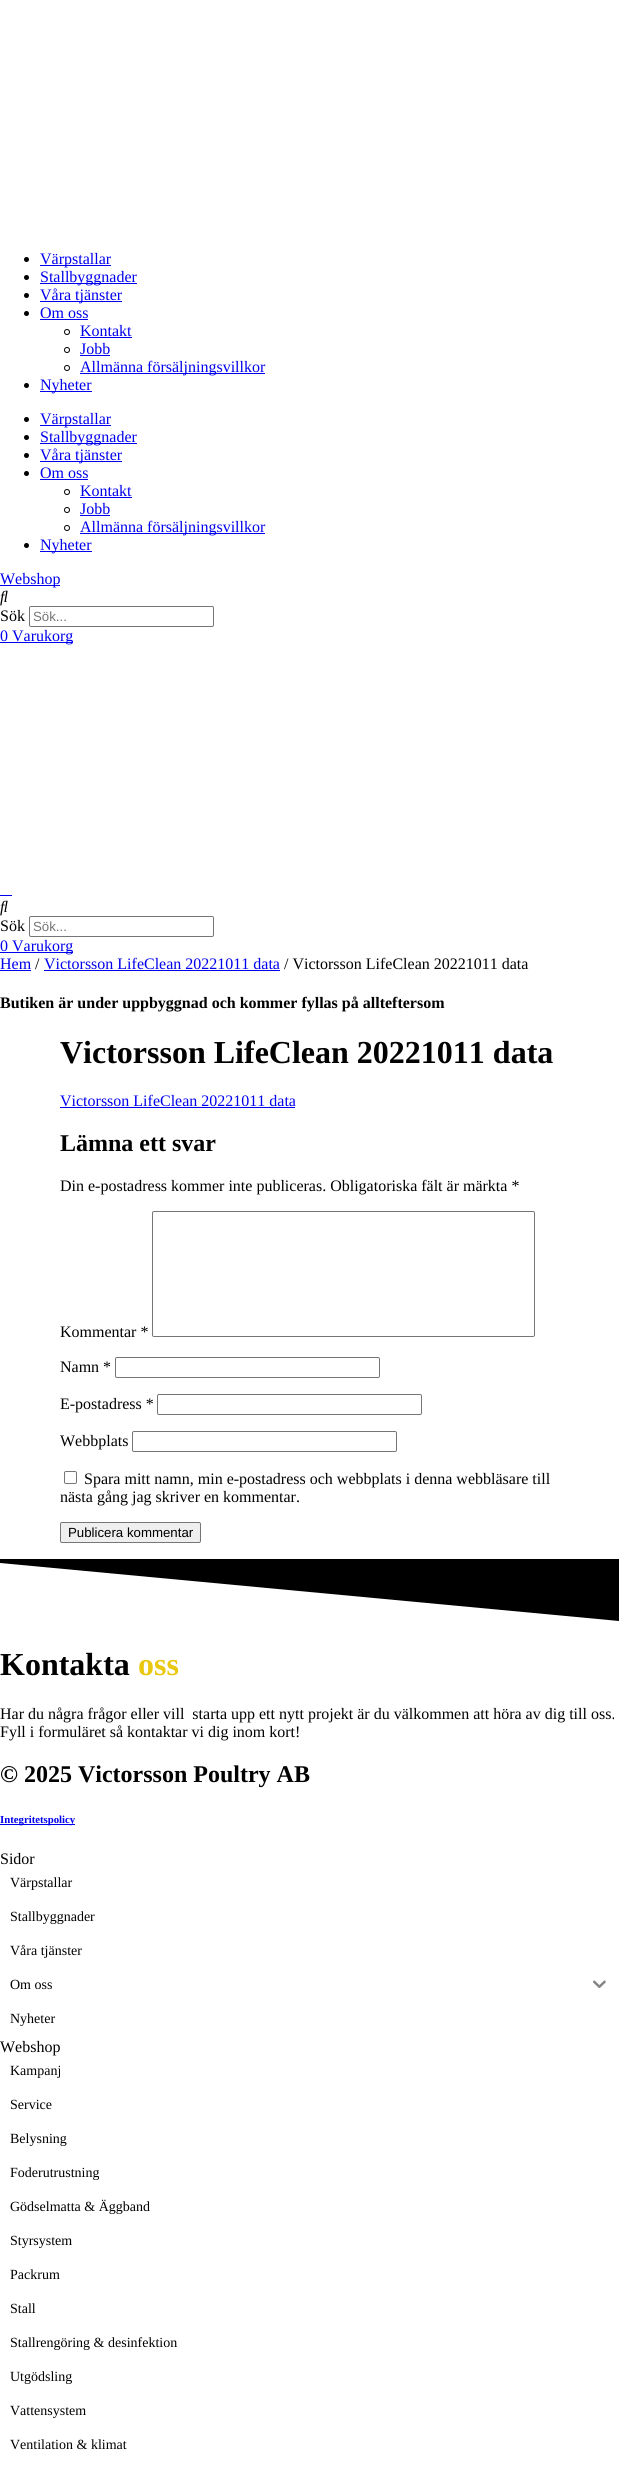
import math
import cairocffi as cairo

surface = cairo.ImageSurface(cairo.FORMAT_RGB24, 619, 2476)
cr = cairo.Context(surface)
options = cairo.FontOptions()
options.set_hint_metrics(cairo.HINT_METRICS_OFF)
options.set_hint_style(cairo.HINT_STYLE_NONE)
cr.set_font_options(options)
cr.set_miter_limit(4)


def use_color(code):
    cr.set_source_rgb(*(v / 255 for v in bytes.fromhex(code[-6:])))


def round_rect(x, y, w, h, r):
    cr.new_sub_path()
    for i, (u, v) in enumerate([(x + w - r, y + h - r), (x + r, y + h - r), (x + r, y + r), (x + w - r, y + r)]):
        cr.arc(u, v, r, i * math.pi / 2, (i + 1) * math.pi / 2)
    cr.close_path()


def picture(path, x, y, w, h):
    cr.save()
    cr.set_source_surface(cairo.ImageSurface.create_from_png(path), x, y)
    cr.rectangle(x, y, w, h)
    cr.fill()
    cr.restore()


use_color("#ffffff")
cr.paint()
use_color("#000000")
cr.arc(26.5, 259.5, 2.5, 0, 2 * math.pi)
cr.fill()
use_color("#0000ee")
cr.rectangle(40, 265, 71, 1)
cr.fill()
cr.select_font_face("Liberation Serif")
cr.set_font_size(16)
cr.move_to(40, 264)
cr.show_text("Värpstallar")
use_color("#000000")
cr.new_path()
cr.arc(26.5, 277.5, 2.5, 0, 2 * math.pi)
cr.fill()
use_color("#0000ee")
cr.rectangle(40, 283, 97, 1)
cr.fill()
cr.move_to(40, 282)
cr.show_text("Stallbyggnader")
use_color("#000000")
cr.new_path()
cr.arc(26.5, 295.5, 2.5, 0, 2 * math.pi)
cr.fill()
use_color("#0000ee")
cr.rectangle(40, 301, 82, 1)
cr.fill()
cr.move_to(40, 300)
cr.show_text("Våra tjänster")
use_color("#000000")
cr.new_path()
cr.arc(26.5, 313.5, 2.5, 0, 2 * math.pi)
cr.fill()
use_color("#0000ee")
cr.move_to(40, 318)
cr.show_text("Om oss")
cr.rectangle(40, 319, 48, 1)
cr.fill()
cr.arc(67, 332, 2.5, 0, 2 * math.pi)
use_color("#000000")
cr.set_line_width(1)
cr.stroke()
use_color("#0000ee")
cr.move_to(80, 336)
cr.show_text("Kontakt")
cr.rectangle(80, 337, 52, 1)
cr.fill()
cr.arc(67, 350, 2.5, 0, 2 * math.pi)
use_color("#000000")
cr.stroke()
use_color("#0000ee")
cr.move_to(80, 354)
cr.show_text("Jobb")
cr.rectangle(80, 355, 30, 1)
cr.fill()
cr.arc(67, 368, 2.5, 0, 2 * math.pi)
use_color("#000000")
cr.stroke()
use_color("#0000ee")
cr.rectangle(80, 373, 185, 1)
cr.fill()
cr.move_to(80, 372)
cr.show_text("Allmänna försäljningsvillkor")
use_color("#000000")
cr.new_path()
cr.arc(26.5, 385.5, 2.5, 0, 2 * math.pi)
cr.fill()
use_color("#0000ee")
cr.rectangle(40, 391, 52, 1)
cr.fill()
cr.move_to(40, 390)
cr.show_text("Nyheter")
use_color("#000000")
cr.new_path()
cr.arc(26.5, 419.5, 2.5, 0, 2 * math.pi)
cr.fill()
use_color("#0000ee")
cr.rectangle(40, 425, 71, 1)
cr.fill()
cr.move_to(40, 424)
cr.show_text("Värpstallar")
use_color("#000000")
cr.new_path()
cr.arc(26.5, 437.5, 2.5, 0, 2 * math.pi)
cr.fill()
use_color("#0000ee")
cr.rectangle(40, 443, 97, 1)
cr.fill()
cr.move_to(40, 442)
cr.show_text("Stallbyggnader")
use_color("#000000")
cr.new_path()
cr.arc(26.5, 455.5, 2.5, 0, 2 * math.pi)
cr.fill()
use_color("#0000ee")
cr.rectangle(40, 461, 82, 1)
cr.fill()
cr.move_to(40, 460)
cr.show_text("Våra tjänster")
use_color("#000000")
cr.new_path()
cr.arc(26.5, 473.5, 2.5, 0, 2 * math.pi)
cr.fill()
use_color("#0000ee")
cr.move_to(40, 478)
cr.show_text("Om oss")
cr.rectangle(40, 479, 48, 1)
cr.fill()
cr.arc(67, 492, 2.5, 0, 2 * math.pi)
use_color("#000000")
cr.stroke()
use_color("#0000ee")
cr.move_to(80, 496)
cr.show_text("Kontakt")
cr.rectangle(80, 497, 52, 1)
cr.fill()
cr.arc(67, 510, 2.5, 0, 2 * math.pi)
use_color("#000000")
cr.stroke()
use_color("#0000ee")
cr.move_to(80, 514)
cr.show_text("Jobb")
cr.rectangle(80, 515, 30, 1)
cr.fill()
cr.arc(67, 528, 2.5, 0, 2 * math.pi)
use_color("#000000")
cr.stroke()
use_color("#0000ee")
cr.rectangle(80, 533, 185, 1)
cr.fill()
cr.move_to(80, 532)
cr.show_text("Allmänna försäljningsvillkor")
use_color("#000000")
cr.new_path()
cr.arc(26.5, 545.5, 2.5, 0, 2 * math.pi)
cr.fill()
use_color("#0000ee")
cr.rectangle(40, 551, 52, 1)
cr.fill()
cr.move_to(40, 550)
cr.show_text("Nyheter")
cr.rectangle(0, 585, 60, 1)
cr.fill()
cr.move_to(0, 584)
cr.show_text("Webshop")
picture("img1.png", 0, 590, 8, 16)
use_color("#000000")
cr.move_to(0, 621)
cr.show_text("Sök")
round_rect(29.5, 606.5, 184, 20, 1.5)
use_color("#767676")
cr.stroke()
cr.select_font_face("Liberation Sans")
cr.set_font_size(13.25)
use_color("#757575")
cr.move_to(33, 621)
cr.show_text("Sök...")
use_color("#0000ee")
cr.rectangle(0, 642, 73, 1)
cr.fill()
cr.select_font_face("Liberation Serif")
cr.set_font_size(16)
cr.move_to(0, 641)
cr.show_text("0 Varukorg")
cr.rectangle(0, 895, 12, 1)
cr.fill()
picture("img1.png", 0, 900, 8, 16)
use_color("#000000")
cr.move_to(0, 931)
cr.show_text("Sök")
round_rect(29.5, 916.5, 184, 20, 1.5)
use_color("#767676")
cr.stroke()
cr.select_font_face("Liberation Sans")
cr.set_font_size(13.25)
use_color("#757575")
cr.move_to(33, 931)
cr.show_text("Sök...")
use_color("#0000ee")
cr.rectangle(0, 952, 73, 1)
cr.fill()
cr.select_font_face("Liberation Serif")
cr.set_font_size(16)
cr.move_to(0, 951)
cr.show_text("0 Varukorg")
cr.move_to(0, 969)
cr.show_text("Hem")
cr.rectangle(0, 970, 31, 1)
cr.fill()
use_color("#000000")
cr.move_to(35, 969)
cr.show_text("/")
use_color("#0000ee")
cr.move_to(44, 969)
cr.show_text("Victorsson LifeClean 20221011 data")
cr.rectangle(44, 970, 236, 1)
cr.fill()
use_color("#000000")
cr.move_to(284, 969)
cr.show_text("/ Victorsson LifeClean 20221011 data")
cr.select_font_face("Liberation Serif", cairo.FONT_SLANT_NORMAL, cairo.FONT_WEIGHT_BOLD)
cr.move_to(0, 1008)
cr.show_text("Butiken är under uppbyggnad och kommer fyllas på allteftersom")
cr.set_font_size(32)
cr.move_to(60, 1063)
cr.show_text("Victorsson LifeClean 20221011 data")
cr.select_font_face("Liberation Serif")
cr.set_font_size(16)
use_color("#0000ee")
cr.move_to(60, 1106)
cr.show_text("Victorsson LifeClean 20221011 data")
cr.rectangle(60, 1107, 235, 1)
cr.fill()
cr.select_font_face("Liberation Serif", cairo.FONT_SLANT_NORMAL, cairo.FONT_WEIGHT_BOLD)
cr.set_font_size(24)
use_color("#000000")
cr.move_to(60, 1151)
cr.show_text("Lämna ett svar")
cr.select_font_face("Liberation Serif")
cr.set_font_size(16)
cr.move_to(60, 1191)
cr.show_text("Din e-postadress kommer inte publiceras. Obligatoriska fält är märkta *")
cr.move_to(60, 1337)
cr.show_text("Kommentar *")
round_rect(152.5, 1211.5, 382, 125, 1.5)
use_color("#767676")
cr.stroke()
use_color("#000000")
cr.move_to(60, 1372)
cr.show_text("Namn *")
round_rect(115.5, 1357.5, 264, 20, 1.5)
use_color("#767676")
cr.stroke()
use_color("#000000")
cr.move_to(60, 1409)
cr.show_text("E-postadress *")
round_rect(157.5, 1394.5, 264, 20, 1.5)
use_color("#767676")
cr.stroke()
use_color("#000000")
cr.move_to(60, 1446)
cr.show_text("Webbplats")
round_rect(132.5, 1431.5, 264, 20, 1.5)
use_color("#767676")
cr.stroke()
round_rect(64.5, 1471.5, 12, 12, 1.5)
cr.stroke()
use_color("#000000")
cr.move_to(84, 1484)
cr.show_text("Spara mitt namn, min e-postadress och webbplats i denna webbläsare till")
cr.move_to(60, 1502)
cr.show_text("nästa gång jag skriver en kommentar.")
use_color("#efefef")
round_rect(60.5, 1522.5, 140, 20, 1.5)
cr.fill_preserve()
use_color("#767676")
cr.stroke()
cr.select_font_face("Liberation Sans")
cr.set_font_size(13.25)
use_color("#000000")
cr.move_to(68, 1537)
cr.show_text("Publicera kommentar")
cr.new_path()
cr.move_to(0, 1563)
cr.line_to(0, 1559)
cr.line_to(619, 1559)
cr.line_to(619, 1621)
cr.close_path()
cr.fill()
cr.select_font_face("Liberation Serif", cairo.FONT_SLANT_NORMAL, cairo.FONT_WEIGHT_BOLD)
cr.set_font_size(32)
cr.move_to(0, 1675)
cr.show_text("Kontakta")
use_color("#e9c80f")
cr.move_to(138, 1675)
cr.show_text("oss")
cr.select_font_face("Liberation Serif")
cr.set_font_size(16)
use_color("#000000")
cr.move_to(0, 1719)
cr.show_text("Har du några frågor eller vill  starta upp ett nytt projekt är du välkommen att höra av dig till oss.")
cr.move_to(0, 1737)
cr.show_text("Fyll i formuläret så kontaktar vi dig inom kort!")
cr.select_font_face("Liberation Serif", cairo.FONT_SLANT_NORMAL, cairo.FONT_WEIGHT_BOLD)
cr.set_font_size(24)
cr.move_to(0, 1782)
cr.show_text("© 2025 Victorsson Poultry AB")
use_color("#0000ee")
cr.rectangle(0, 1824, 75, 1)
cr.fill()
cr.set_font_size(10.75)
cr.move_to(0, 1823)
cr.show_text("Integritetspolicy")
cr.select_font_face("Liberation Serif")
cr.set_font_size(16)
use_color("#000000")
cr.move_to(0, 1864)
cr.show_text("Sidor")
cr.set_font_size(14)
cr.move_to(10, 1887)
cr.show_text("Värpstallar")
cr.move_to(10, 1921)
cr.show_text("Stallbyggnader")
cr.move_to(10, 1955)
cr.show_text("Våra tjänster")
cr.move_to(10, 1989)
cr.show_text("Om oss")
picture("img2.png", 593, 1980, 13, 8)
cr.move_to(10, 2023)
cr.show_text("Nyheter")
cr.set_font_size(16)
cr.move_to(0, 2052)
cr.show_text("Webshop")
cr.set_font_size(14)
cr.move_to(10, 2075)
cr.show_text("Kampanj")
cr.move_to(10, 2109)
cr.show_text("Service")
cr.move_to(10, 2143)
cr.show_text("Belysning")
cr.move_to(10, 2177)
cr.show_text("Foderutrustning")
cr.move_to(10, 2211)
cr.show_text("Gödselmatta & Äggband")
cr.move_to(10, 2245)
cr.show_text("Styrsystem")
cr.move_to(10, 2279)
cr.show_text("Packrum")
cr.move_to(10, 2313)
cr.show_text("Stall")
cr.move_to(10, 2347)
cr.show_text("Stallrengöring & desinfektion")
cr.move_to(10, 2381)
cr.show_text("Utgödsling")
cr.move_to(10, 2415)
cr.show_text("Vattensystem")
cr.move_to(10, 2449)
cr.show_text("Ventilation & klimat")
surface.write_to_png("result.png")
